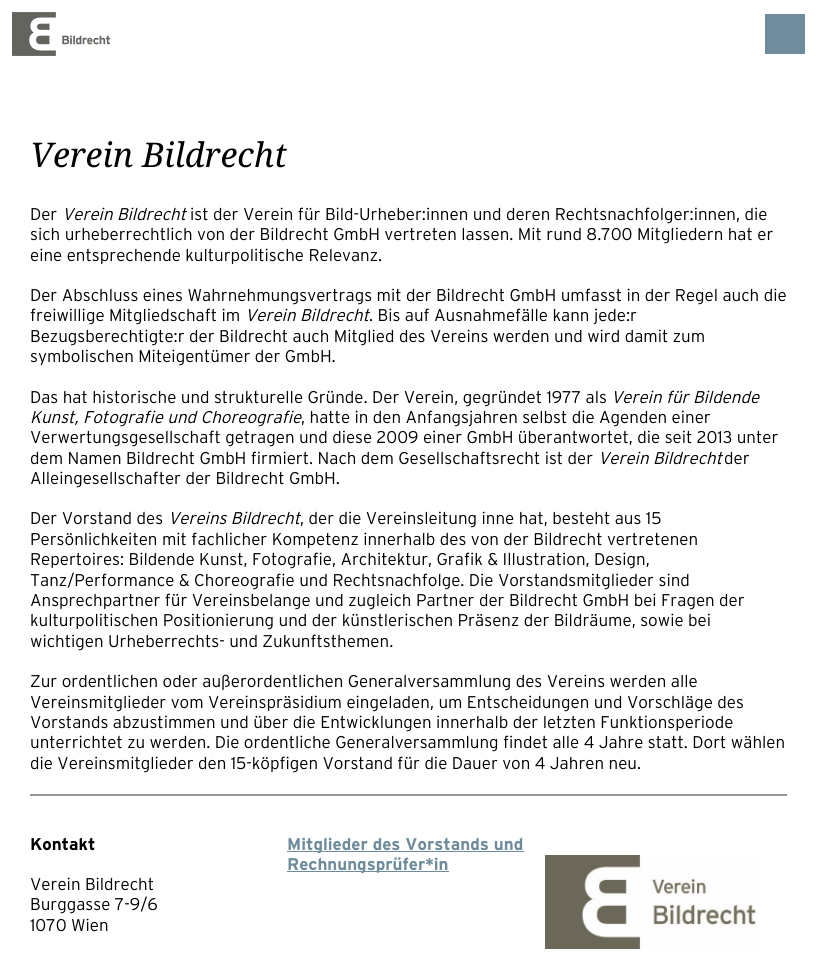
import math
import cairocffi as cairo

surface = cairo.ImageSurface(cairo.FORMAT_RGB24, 817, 955)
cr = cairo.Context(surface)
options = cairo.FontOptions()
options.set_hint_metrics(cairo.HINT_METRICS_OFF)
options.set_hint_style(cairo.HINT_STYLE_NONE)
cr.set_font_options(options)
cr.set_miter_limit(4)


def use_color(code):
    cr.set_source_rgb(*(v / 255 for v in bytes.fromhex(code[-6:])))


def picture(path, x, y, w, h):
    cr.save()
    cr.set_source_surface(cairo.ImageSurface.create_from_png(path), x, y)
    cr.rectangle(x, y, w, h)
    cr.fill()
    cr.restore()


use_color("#ffffff")
cr.paint()
picture("img1.png", 12, 12, 99, 44)
use_color("#6e8c9b")
cr.rectangle(765, 14, 40, 40)
cr.fill()
cr.select_font_face("Droid Serif", cairo.FONT_SLANT_ITALIC)
cr.set_font_size(34)
use_color("#000000")
cr.move_to(30, 167)
cr.show_text("Verein Bildrecht")
cr.select_font_face("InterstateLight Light")
cr.set_font_size(17)
cr.move_to(30, 220)
cr.show_text("Der")
cr.select_font_face("InterstateLight Light", cairo.FONT_SLANT_ITALIC)
cr.move_to(62, 220)
cr.show_text("Verein Bildrecht")
cr.select_font_face("InterstateLight Light")
cr.move_to(190, 220)
cr.show_text("ist der Verein für Bild-Urheber:innen und deren Rechtsnachfolger:innen, die")
cr.move_to(30, 240)
cr.show_text("sich urheberrechtlich von der Bildrecht GmbH vertreten lassen. Mit rund 8.700 Mitgliedern hat er")
cr.move_to(30, 261)
cr.show_text("eine entsprechende kulturpolitische Relevanz.")
cr.move_to(30, 301)
cr.show_text("Der Abschluss eines Wahrnehmungsvertrags mit der Bildrecht GmbH umfasst in der Regel auch die")
cr.move_to(30, 321)
cr.show_text("freiwillige Mitgliedschaft im")
cr.select_font_face("InterstateLight Light", cairo.FONT_SLANT_ITALIC)
cr.move_to(245, 321)
cr.show_text("Verein Bildrecht")
cr.select_font_face("InterstateLight Light")
cr.move_to(369, 321)
cr.show_text(". Bis auf Ausnahmefälle kann jede:r")
cr.move_to(30, 342)
cr.show_text("Bezugsberechtigte:r der Bildrecht auch Mitglied des Vereins werden und wird damit zum")
cr.move_to(30, 362)
cr.show_text("symbolischen Miteigentümer der GmbH.")
cr.move_to(30, 403)
cr.show_text("Das hat historische und strukturelle Gründe. Der Verein, gegründet 1977 als")
cr.select_font_face("InterstateLight Light", cairo.FONT_SLANT_ITALIC)
cr.move_to(611, 403)
cr.show_text("Verein für Bildende")
cr.move_to(30, 423)
cr.show_text("Kunst, Fotografie und Choreografie")
cr.select_font_face("InterstateLight Light")
cr.move_to(301, 423)
cr.show_text(", hatte in den Anfangsjahren selbst die Agenden einer")
cr.move_to(30, 443)
cr.show_text("Verwertungsgesellschaft getragen und diese 2009 einer GmbH überantwortet, die seit 2013 unter")
cr.move_to(30, 464)
cr.show_text("dem Namen Bildrecht GmbH firmiert. Nach dem Gesellschaftsrecht ist der")
cr.select_font_face("InterstateLight Light", cairo.FONT_SLANT_ITALIC)
cr.move_to(598, 464)
cr.show_text("Verein Bildrecht")
cr.select_font_face("InterstateLight Light")
cr.move_to(724, 464)
cr.show_text("der")
cr.move_to(30, 484)
cr.show_text("Alleingesellschafter der Bildrecht GmbH.")
cr.move_to(30, 524)
cr.show_text("Der Vorstand des")
cr.select_font_face("InterstateLight Light", cairo.FONT_SLANT_ITALIC)
cr.move_to(168, 524)
cr.show_text("Vereins Bildrecht")
cr.select_font_face("InterstateLight Light")
cr.move_to(300, 524)
cr.show_text(", der die Vereinsleitung inne hat, besteht aus 15")
cr.move_to(30, 545)
cr.show_text("Persönlichkeiten mit fachlicher Kompetenz innerhalb des von der Bildrecht vertretenen")
cr.move_to(30, 565)
cr.show_text("Repertoires: Bildende Kunst, Fotografie, Architektur, Grafik & Illustration, Design,")
cr.move_to(30, 586)
cr.show_text("Tanz/Performance & Choreografie und Rechtsnachfolge. Die Vorstandsmitglieder sind")
cr.move_to(30, 606)
cr.show_text("Ansprechpartner für Vereinsbelange und zugleich Partner der Bildrecht GmbH bei Fragen der")
cr.move_to(30, 626)
cr.show_text("kulturpolitischen Positionierung und der künstlerischen Präsenz der Bildräume, sowie bei")
cr.move_to(30, 647)
cr.show_text("wichtigen Urheberrechts- und Zukunftsthemen.")
cr.move_to(30, 687)
cr.show_text("Zur ordentlichen oder außerordentlichen Generalversammlung des Vereins werden alle")
cr.move_to(30, 708)
cr.show_text("Vereinsmitglieder vom Vereinspräsidium eingeladen, um Entscheidungen und Vorschläge des")
cr.move_to(30, 728)
cr.show_text("Vorstands abzustimmen und über die Entwicklungen innerhalb der letzten Funktionsperiode")
cr.move_to(30, 748)
cr.show_text("unterrichtet zu werden. Die ordentliche Generalversammlung findet alle 4 Jahre statt. Dort wählen")
cr.move_to(30, 769)
cr.show_text("die Vereinsmitglieder den 15-köpfigen Vorstand für die Dauer von 4 Jahren neu.")
use_color("#979797")
cr.rectangle(30, 794, 757, 2)
cr.fill()
cr.select_font_face("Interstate", cairo.FONT_SLANT_NORMAL, cairo.FONT_WEIGHT_BOLD)
use_color("#000000")
cr.move_to(30, 850)
cr.show_text("Kontakt")
cr.select_font_face("InterstateLight Light")
cr.move_to(30, 890)
cr.show_text("Verein Bildrecht")
cr.move_to(30, 910)
cr.show_text("Burggasse 7-9/6")
cr.move_to(30, 931)
cr.show_text("1070 Wien")
use_color("#6e8c9b")
cr.rectangle(287, 851, 237, 1)
cr.fill()
cr.select_font_face("Interstate", cairo.FONT_SLANT_NORMAL, cairo.FONT_WEIGHT_BOLD)
cr.move_to(287, 850)
cr.show_text("Mitglieder des Vorstands und")
cr.rectangle(287, 871, 162, 1)
cr.fill()
cr.move_to(287, 870)
cr.show_text("Rechnungsprüfer*in")
picture("img2.png", 545, 855, 213, 94)
surface.write_to_png("result.png")
